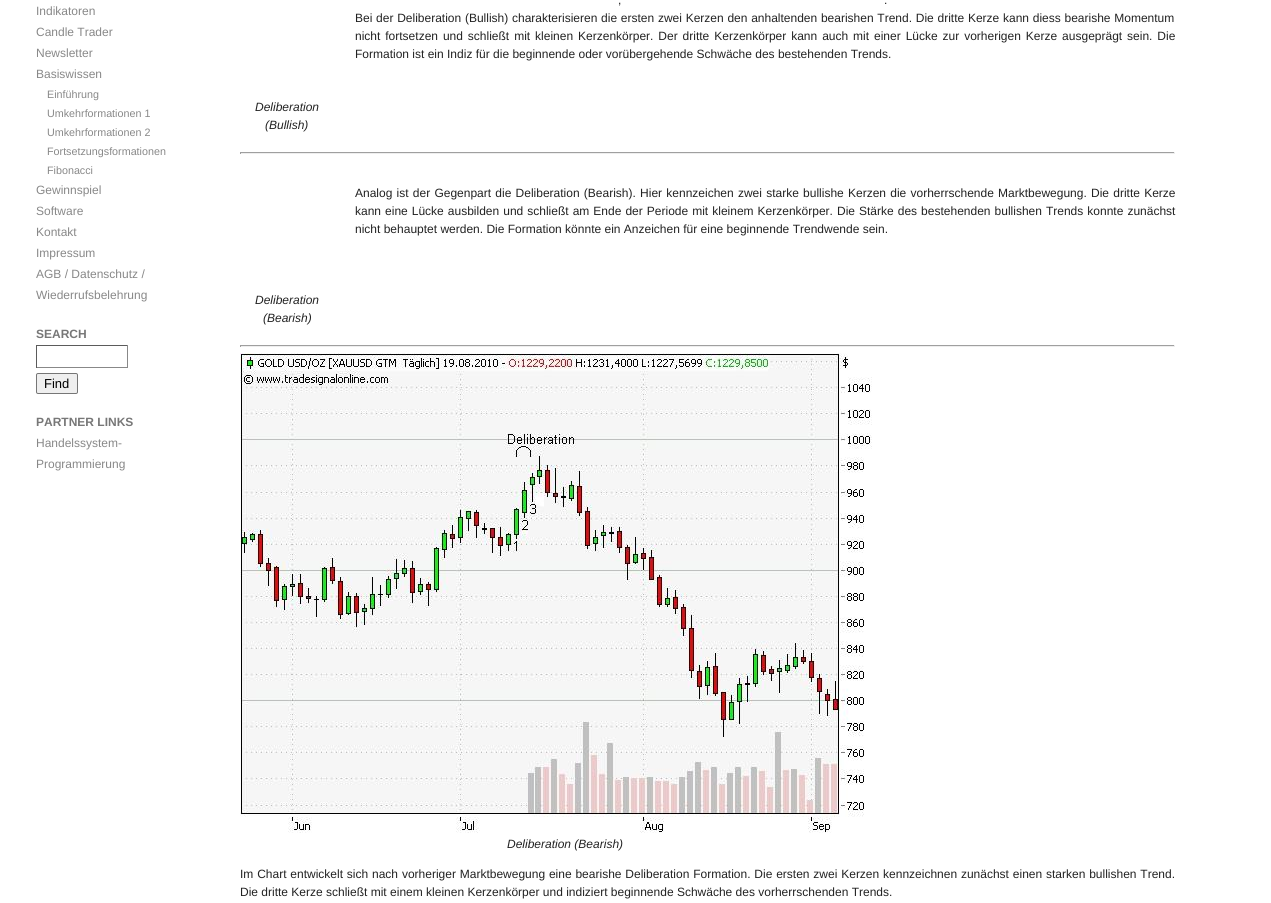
import math
import cairocffi as cairo

surface = cairo.ImageSurface(cairo.FORMAT_RGB24, 1271, 903)
cr = cairo.Context(surface)
options = cairo.FontOptions()
options.set_hint_metrics(cairo.HINT_METRICS_OFF)
options.set_hint_style(cairo.HINT_STYLE_NONE)
cr.set_font_options(options)
cr.set_miter_limit(4)


def use_color(code):
    cr.set_source_rgb(*(v / 255 for v in bytes.fromhex(code[-6:])))


def spaced_text(x, y, s, letter, word):
    cr.move_to(x, y)
    for ch in s:
        cr.show_text(ch)
        cr.rel_move_to(letter + word * (ch == ' '), 0)


def round_rect(x, y, w, h, r):
    cr.new_sub_path()
    for i, (u, v) in enumerate([(x + w - r, y + h - r), (x + r, y + h - r), (x + r, y + r), (x + w - r, y + r)]):
        cr.arc(u, v, r, i * math.pi / 2, (i + 1) * math.pi / 2)
    cr.close_path()


def picture(path, x, y, w, h):
    cr.save()
    cr.set_source_surface(cairo.ImageSurface.create_from_png(path), x, y)
    cr.rectangle(x, y, w, h)
    cr.fill()
    cr.restore()


use_color("#ffffff")
cr.paint()
cr.select_font_face("Liberation Sans")
cr.set_font_size(12)
use_color("#888888")
cr.move_to(36, 15)
cr.show_text("Indikatoren")
cr.move_to(36, 36)
cr.show_text("Candle Trader")
cr.move_to(36, 57)
cr.show_text("Newsletter")
cr.move_to(36, 78)
cr.show_text("Basiswissen")
cr.set_font_size(10.75)
cr.move_to(47, 98)
cr.show_text("Einführung")
cr.move_to(47, 117)
cr.show_text("Umkehrformationen 1")
cr.move_to(47, 136)
cr.show_text("Umkehrformationen 2")
cr.move_to(47, 155)
cr.show_text("Fortsetzungsformationen")
cr.move_to(47, 174)
cr.show_text("Fibonacci")
cr.set_font_size(12)
cr.move_to(36, 194)
cr.show_text("Gewinnspiel")
cr.move_to(36, 215)
cr.show_text("Software")
cr.move_to(36, 236)
cr.show_text("Kontakt")
cr.move_to(36, 257)
cr.show_text("Impressum")
cr.move_to(36, 278)
cr.show_text("AGB / Datenschutz /")
cr.move_to(36, 299)
cr.show_text("Wiederrufsbelehrung")
cr.select_font_face("Liberation Sans", cairo.FONT_SLANT_NORMAL, cairo.FONT_WEIGHT_BOLD)
use_color("#777777")
cr.move_to(36, 338)
cr.show_text("SEARCH")
use_color("#5b5b5b")
cr.rectangle(36, 345, 92, 1)
cr.fill()
use_color("#888888")
cr.rectangle(127, 345, 1, 23)
cr.fill()
cr.rectangle(36, 367, 92, 1)
cr.fill()
use_color("#5b5b5b")
cr.rectangle(36, 345, 1, 23)
cr.fill()
use_color("#efefef")
round_rect(36.5, 373.5, 41, 20, 1.5)
cr.fill_preserve()
use_color("#767676")
cr.set_line_width(1)
cr.stroke()
cr.select_font_face("Liberation Sans")
cr.set_font_size(13)
use_color("#000000")
cr.move_to(44, 388)
cr.show_text("Find")
cr.select_font_face("Liberation Sans", cairo.FONT_SLANT_NORMAL, cairo.FONT_WEIGHT_BOLD)
cr.set_font_size(12)
use_color("#777777")
cr.move_to(36, 426)
cr.show_text("PARTNER LINKS")
cr.select_font_face("Liberation Sans")
use_color("#888888")
cr.move_to(36, 447)
cr.show_text("Handelssystem-")
cr.move_to(36, 468)
cr.show_text("Programmierung")
use_color("#222222")
cr.move_to(618, 4)
cr.show_text(",")
cr.move_to(884, 4)
cr.show_text(".")
spaced_text(355, 22, "Bei der Deliberation (Bullish) charakterisieren die ersten zwei Kerzen den anhaltenden bearishen Trend. Die dritte Kerze kann diess bearishe Momentum", 0, 0.4)
spaced_text(355, 40, "nicht fortsetzen und schließt mit kleinen Kerzenkörper. Der dritte Kerzenkörper kann auch mit einer Lücke zur vorherigen Kerze ausgeprägt sein. Die", 0, 1.6)
cr.move_to(355, 58)
cr.show_text("Formation ist ein Indiz für die beginnende oder vorübergehende Schwäche des bestehenden Trends.")
cr.select_font_face("Liberation Sans", cairo.FONT_SLANT_ITALIC)
cr.move_to(255, 111)
cr.show_text("Deliberation")
cr.move_to(265, 129)
cr.show_text("(Bullish)")
use_color("#9f9f9f")
cr.rectangle(240, 152, 935, 1)
cr.fill()
use_color("#eeeeee")
cr.rectangle(1174, 152, 1, 2)
cr.fill()
cr.rectangle(240, 153, 935, 1)
cr.fill()
use_color("#9f9f9f")
cr.rectangle(240, 152, 1, 2)
cr.fill()
cr.select_font_face("Liberation Sans")
use_color("#222222")
spaced_text(355, 197, "Analog ist der Gegenpart die Deliberation (Bearish). Hier kennzeichen zwei starke bullishe Kerzen die vorherrschende Marktbewegung. Die dritte Kerze", 0, 0.9)
spaced_text(355, 215, "kann eine Lücke ausbilden und schließt am Ende der Periode mit kleinem Kerzenkörper. Die Stärke des bestehenden bullishen Trends konnte zunächst", 0, 0.7)
cr.move_to(355, 233)
cr.show_text("nicht behauptet werden. Die Formation könnte ein Anzeichen für eine beginnende Trendwende sein.")
cr.select_font_face("Liberation Sans", cairo.FONT_SLANT_ITALIC)
cr.move_to(255, 304)
cr.show_text("Deliberation")
cr.move_to(263, 322)
cr.show_text("(Bearish)")
use_color("#9f9f9f")
cr.rectangle(240, 345, 935, 1)
cr.fill()
use_color("#eeeeee")
cr.rectangle(1174, 345, 1, 2)
cr.fill()
cr.rectangle(240, 346, 935, 1)
cr.fill()
use_color("#9f9f9f")
cr.rectangle(240, 345, 1, 2)
cr.fill()
picture("img1.png", 240, 353, 632, 480)
use_color("#222222")
cr.move_to(507, 848)
cr.show_text("Deliberation (Bearish)")
cr.select_font_face("Liberation Sans")
spaced_text(240, 878, "Im Chart entwickelt sich nach vorheriger Marktbewegung eine bearishe Deliberation Formation. Die ersten zwei Kerzen kennzeichnen zunächst einen starken bullishen Trend.", 0, 0.5)
cr.move_to(240, 896)
cr.show_text("Die dritte Kerze schließt mit einem kleinen Kerzenkörper und indiziert beginnende Schwäche des vorherrschenden Trends.")
surface.write_to_png("result.png")
